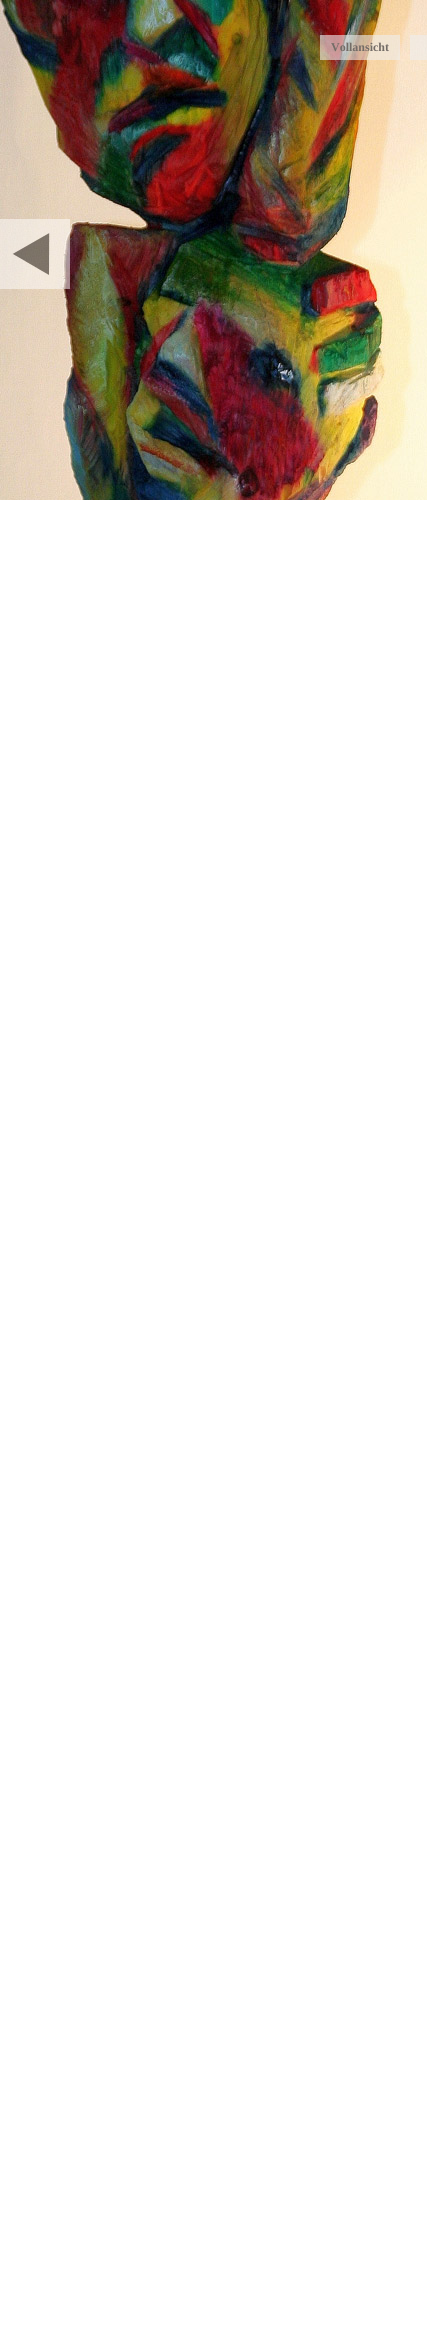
import math
import cairocffi as cairo

surface = cairo.ImageSurface(cairo.FORMAT_RGB24, 427, 2335)
cr = cairo.Context(surface)
options = cairo.FontOptions()
options.set_hint_metrics(cairo.HINT_METRICS_OFF)
options.set_hint_style(cairo.HINT_STYLE_NONE)
cr.set_font_options(options)
cr.set_miter_limit(4)


def use_color(code):
    cr.set_source_rgb(*(v / 255 for v in bytes.fromhex(code[-6:])))


def picture(path, x, y, w, h):
    cr.save()
    cr.set_source_surface(cairo.ImageSurface.create_from_png(path), x, y)
    cr.rectangle(x, y, w, h)
    cr.fill()
    cr.restore()


use_color("#ffffff")
cr.paint()
picture("img1.png", 0, 0, 427, 500)
cr.set_source_rgba(0.933, 0.933, 0.933, 0.6)
cr.rectangle(320, 35, 80, 25)
cr.fill()
cr.select_font_face("Liberation Serif", cairo.FONT_SLANT_NORMAL, cairo.FONT_WEIGHT_BOLD)
cr.set_font_size(12)
use_color("#746d67")
cr.move_to(331, 51)
cr.show_text("Vollansicht")
cr.set_source_rgba(0.933, 0.933, 0.933, 0.6)
cr.rectangle(410, 35, 17, 25)
cr.fill()
picture("img2.png", 0, 219, 70, 70)
surface.write_to_png("result.png")
